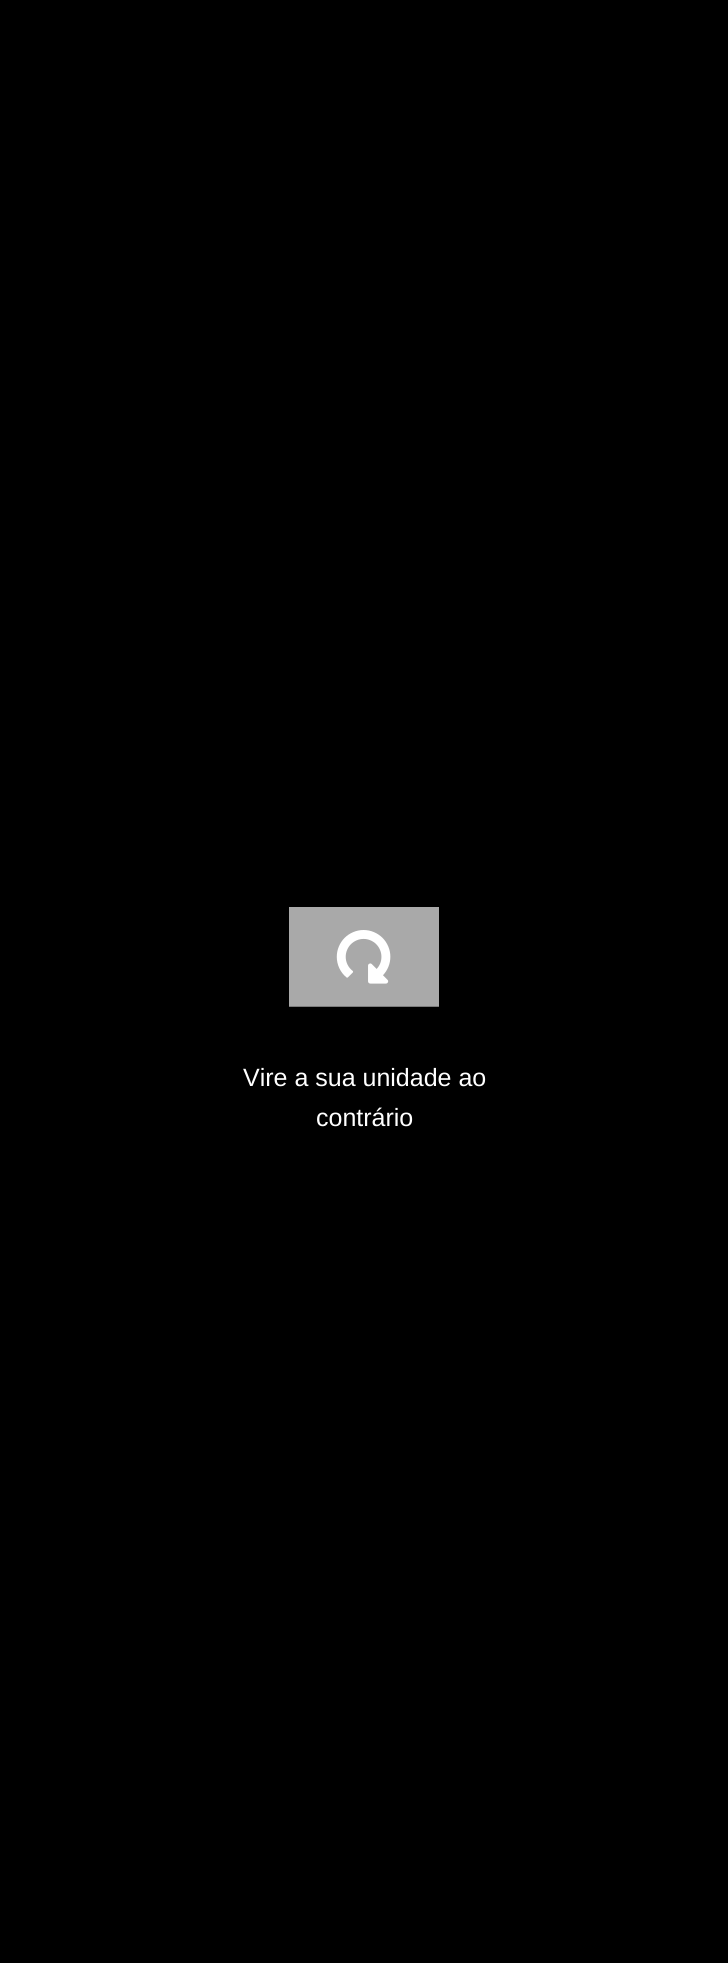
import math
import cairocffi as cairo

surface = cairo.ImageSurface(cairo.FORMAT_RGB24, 728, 1963)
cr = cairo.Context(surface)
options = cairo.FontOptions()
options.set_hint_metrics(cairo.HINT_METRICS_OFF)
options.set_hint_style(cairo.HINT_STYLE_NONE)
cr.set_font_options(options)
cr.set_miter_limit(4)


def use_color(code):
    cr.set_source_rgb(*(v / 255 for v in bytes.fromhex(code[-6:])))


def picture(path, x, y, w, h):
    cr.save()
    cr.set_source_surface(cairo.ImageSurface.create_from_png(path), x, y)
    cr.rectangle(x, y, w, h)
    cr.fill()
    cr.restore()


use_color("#000000")
cr.paint()
use_color("#a9a9a9")
cr.rectangle(289, 907, 150, 100)
cr.fill()
cr.new_path()
cr.move_to(458, 907)
cr.line_to(458, 1007)
cr.curve_to(458, 1010.5, 455.5, 1013, 452, 1013)
cr.line_to(277, 1013)
cr.curve_to(273.5, 1013, 270.5, 1010.5, 270.5, 1007)
cr.line_to(270.5, 907)
cr.curve_to(270.5, 903.5, 273.5, 900.5, 277, 900.5)
cr.line_to(452, 900.5)
cr.curve_to(455.5, 900.5, 458, 903.5, 458, 907)
cr.close_path()
use_color("#000000")
cr.set_line_width(12.5)
cr.stroke()
picture("img1.png", 336, 930, 55, 54)
cr.select_font_face("Liberation Sans")
cr.set_font_size(25)
use_color("#ffffff")
cr.move_to(243, 1086)
cr.show_text("Vire a sua unidade ao")
cr.move_to(316, 1126)
cr.show_text("contrário")
surface.write_to_png("result.png")
